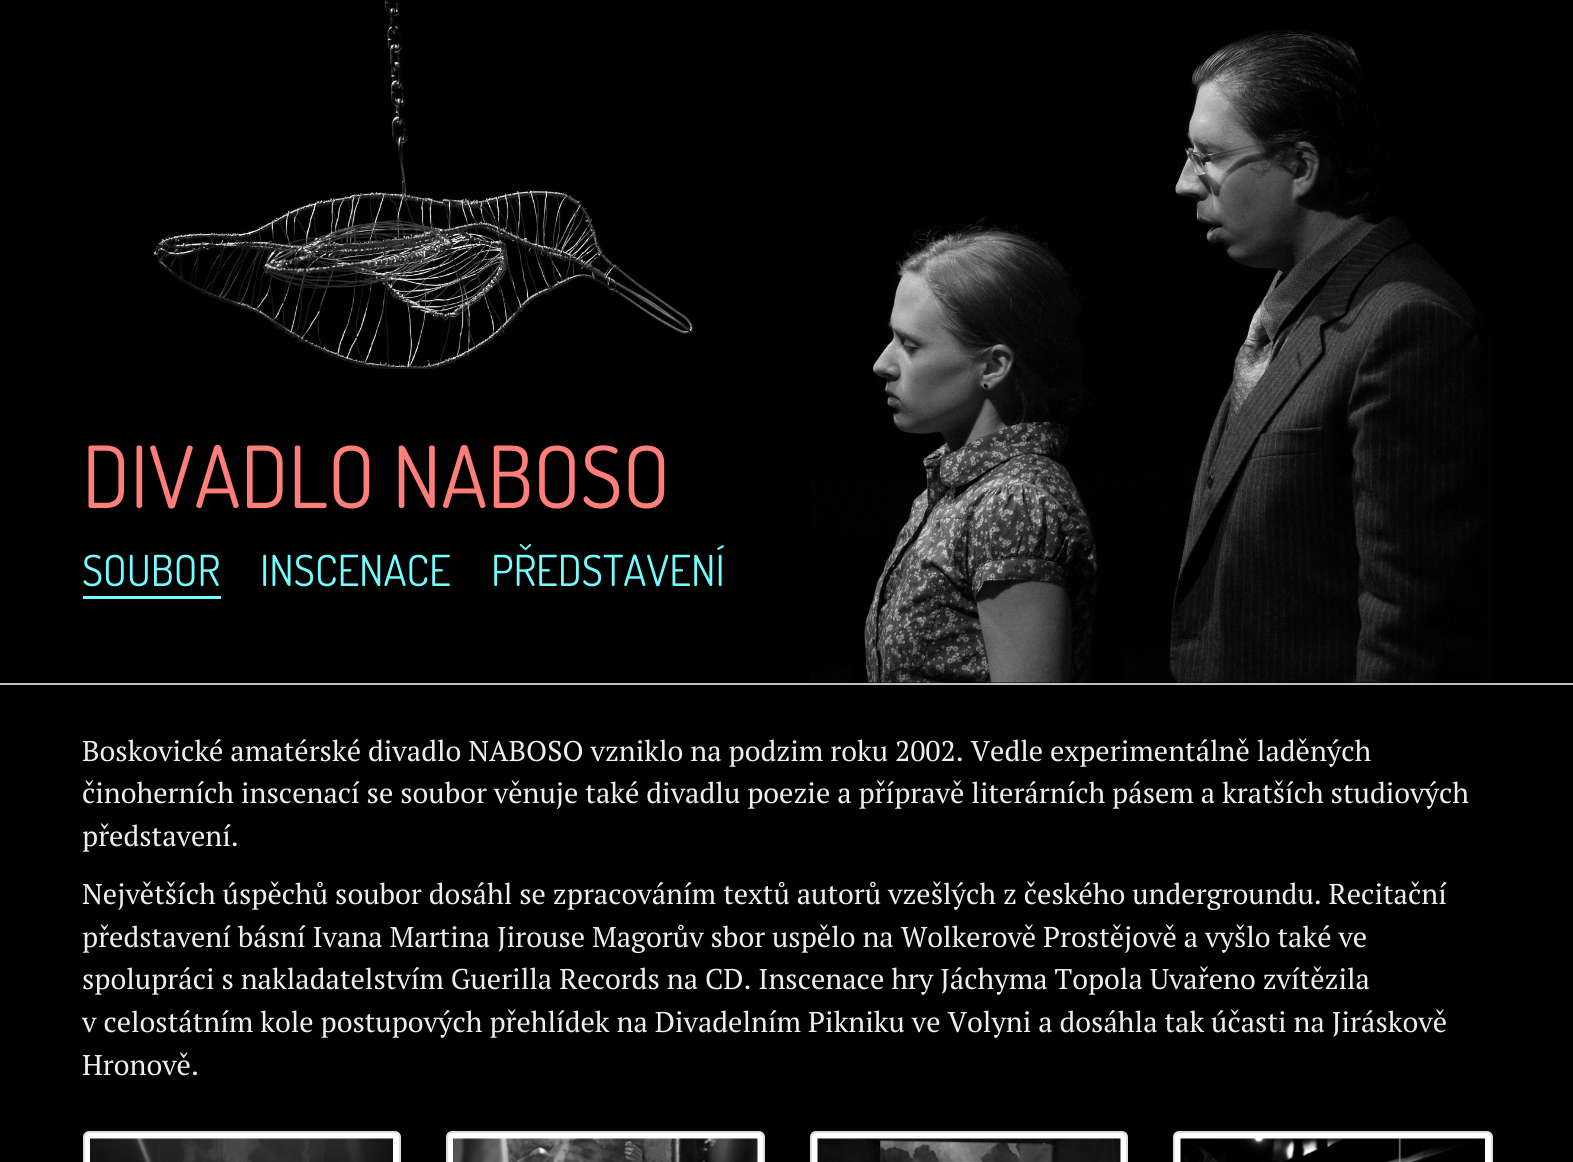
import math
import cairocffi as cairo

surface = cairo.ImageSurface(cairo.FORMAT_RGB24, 1573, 1162)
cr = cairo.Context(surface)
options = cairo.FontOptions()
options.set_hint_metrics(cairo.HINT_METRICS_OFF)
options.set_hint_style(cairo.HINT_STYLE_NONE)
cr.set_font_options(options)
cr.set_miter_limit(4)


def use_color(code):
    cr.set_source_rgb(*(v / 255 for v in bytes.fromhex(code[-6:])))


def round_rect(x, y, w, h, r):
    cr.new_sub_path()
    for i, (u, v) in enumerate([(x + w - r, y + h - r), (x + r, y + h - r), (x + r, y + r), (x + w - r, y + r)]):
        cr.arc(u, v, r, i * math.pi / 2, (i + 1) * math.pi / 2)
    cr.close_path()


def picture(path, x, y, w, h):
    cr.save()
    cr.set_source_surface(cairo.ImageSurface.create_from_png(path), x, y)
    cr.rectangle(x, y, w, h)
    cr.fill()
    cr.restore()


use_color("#000000")
cr.paint()
use_color("#c0c0c0")
cr.rectangle(0, 683, 1573, 2)
cr.fill()
picture("img1.png", 153, 0, 540, 369)
cr.select_font_face("Dosis")
cr.set_font_size(85.5)
use_color("#ff7e79")
cr.move_to(82, 508)
cr.show_text("DIVADLO NABOSO")
cr.set_font_size(42.75)
use_color("#73fdff")
cr.move_to(82, 586)
cr.show_text("SOUBOR")
cr.rectangle(83, 596, 138, 3)
cr.fill()
cr.move_to(260, 586)
cr.show_text("INSCENACE")
cr.move_to(491, 586)
cr.show_text("PŘEDSTAVENÍ")
picture("img2.png", 810, 29, 682, 654)
cr.select_font_face("PT Serif")
cr.set_font_size(28.5)
use_color("#eeeeee")
cr.move_to(82, 761)
cr.show_text("Boskovické amatérské divadlo NABOSO vzniklo na podzim roku 2002. Vedle experimentálně laděných")
cr.move_to(82, 803)
cr.show_text("činoherních inscenací se soubor věnuje také divadlu poezie a přípravě literárních pásem a kratších studiových")
cr.move_to(82, 846)
cr.show_text("představení.")
cr.move_to(82, 904)
cr.show_text("Největších úspěchů soubor dosáhl se zpracováním textů autorů vzešlých z českého undergroundu. Recitační")
cr.move_to(82, 947)
cr.show_text("představení básní Ivana Martina Jirouse Magorův sbor uspělo na Wolkerově Prostějově a vyšlo také ve")
cr.move_to(82, 989)
cr.show_text("spolupráci s nakladatelstvím Guerilla Records na CD. Inscenace hry Jáchyma Topola Uvařeno zvítězila")
cr.move_to(82, 1032)
cr.show_text("v celostátním kole postupových přehlídek na Divadelním Pikniku ve Volyni a dosáhla tak účasti na Jiráskově")
cr.move_to(82, 1075)
cr.show_text("Hronově.")
use_color("#ffffff")
round_rect(84, 1132, 316, 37, 5)
cr.fill_preserve()
use_color("#dddddd")
cr.stroke()
picture("img3.png", 90, 1138, 303, 24)
use_color("#ffffff")
round_rect(447, 1132, 317, 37, 5)
cr.fill_preserve()
use_color("#dddddd")
cr.stroke()
picture("img4.png", 453, 1138, 305, 24)
use_color("#ffffff")
round_rect(811, 1132, 316, 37, 5)
cr.fill_preserve()
use_color("#dddddd")
cr.stroke()
picture("img5.png", 817, 1138, 304, 24)
use_color("#ffffff")
round_rect(1174, 1132, 318, 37, 5)
cr.fill_preserve()
use_color("#dddddd")
cr.stroke()
picture("img6.png", 1180, 1138, 305, 24)
surface.write_to_png("result.png")
